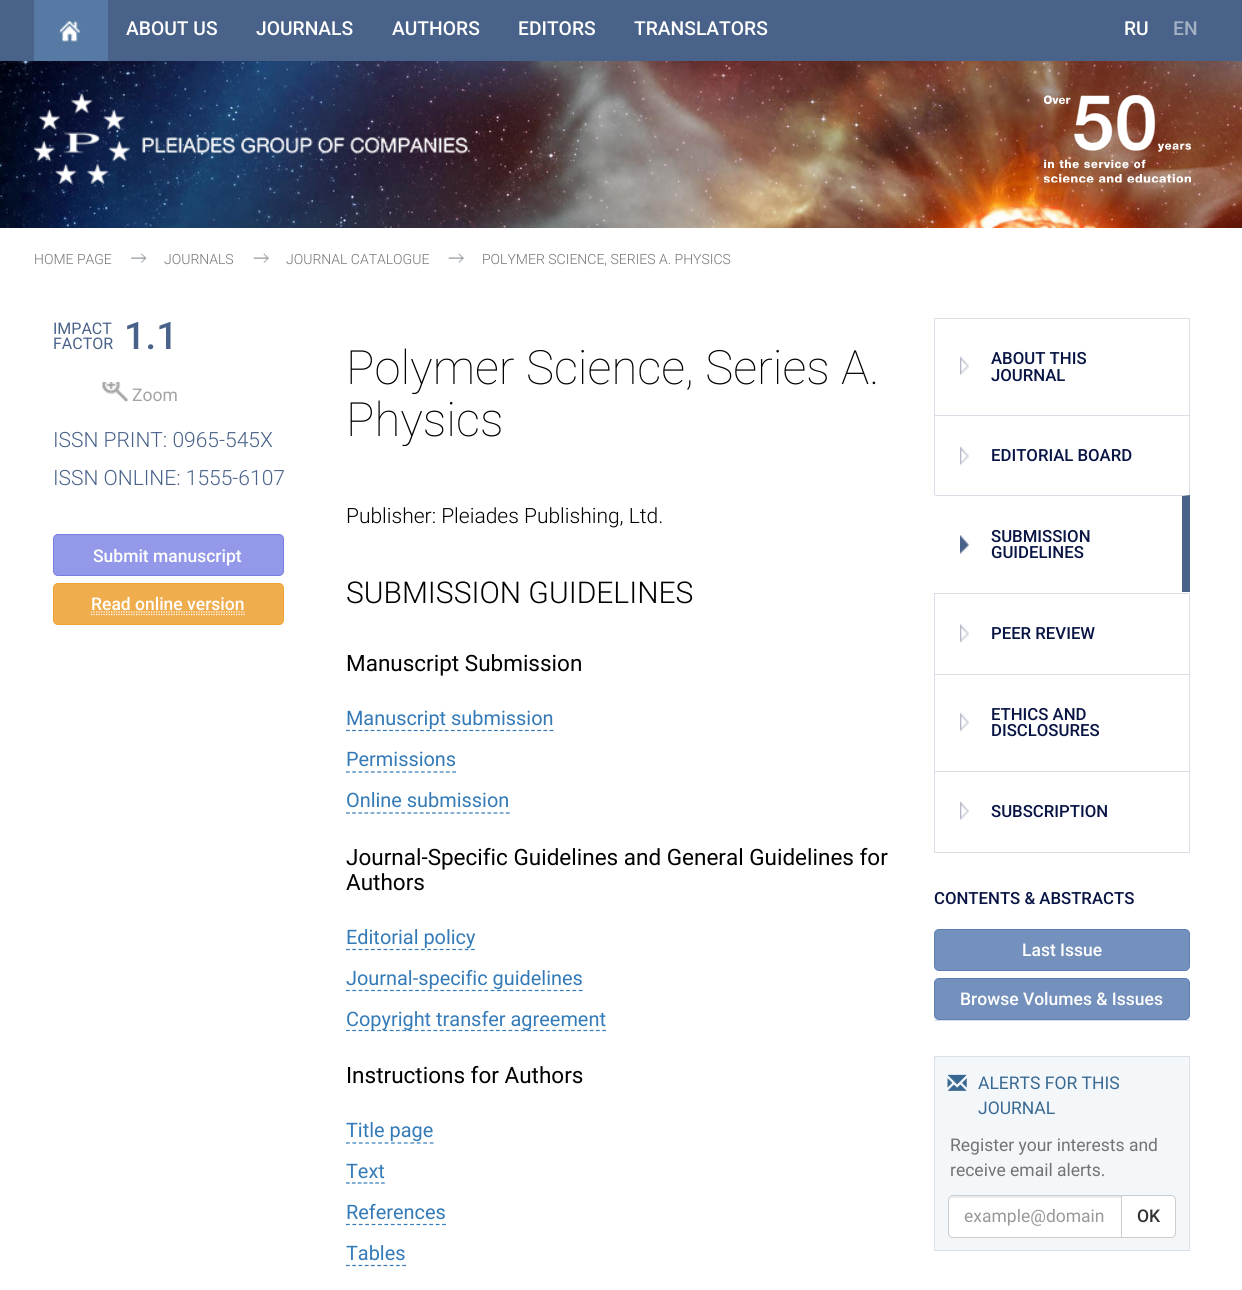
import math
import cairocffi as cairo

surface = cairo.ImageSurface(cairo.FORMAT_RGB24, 1242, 1290)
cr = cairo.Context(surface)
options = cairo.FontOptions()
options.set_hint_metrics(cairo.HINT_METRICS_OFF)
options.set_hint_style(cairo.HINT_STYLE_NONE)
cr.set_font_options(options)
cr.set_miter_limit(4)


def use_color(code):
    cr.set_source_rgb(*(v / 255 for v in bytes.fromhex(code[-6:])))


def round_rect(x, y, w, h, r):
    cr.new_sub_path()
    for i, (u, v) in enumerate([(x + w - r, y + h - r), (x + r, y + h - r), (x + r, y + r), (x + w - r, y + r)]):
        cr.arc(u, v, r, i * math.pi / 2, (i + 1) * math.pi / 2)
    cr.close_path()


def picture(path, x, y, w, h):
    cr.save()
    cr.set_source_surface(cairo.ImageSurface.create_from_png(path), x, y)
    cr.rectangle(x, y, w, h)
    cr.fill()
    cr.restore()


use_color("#ffffff")
cr.paint()
use_color("#49628a")
cr.rectangle(0, 0, 1242, 61)
cr.fill()
use_color("#577aa4")
cr.rectangle(34, 0, 74, 61)
cr.fill()
picture("img1.png", 59, 21, 22, 21)
cr.select_font_face("Roboto Medium")
cr.set_font_size(19.25)
use_color("#ffffff")
cr.move_to(126, 35)
cr.show_text("ABOUT US")
cr.move_to(256, 35)
cr.show_text("JOURNALS")
cr.move_to(392, 35)
cr.show_text("AUTHORS")
cr.move_to(518, 35)
cr.show_text("EDITORS")
cr.move_to(634, 35)
cr.show_text("TRANSLATORS")
cr.move_to(1124, 35)
cr.show_text("RU")
use_color("#a4b1c5")
cr.move_to(1173, 35)
cr.show_text("EN")
picture("img2.png", 0, 61, 1242, 167)
picture("img3.png", 33, 93, 435, 91)
picture("img4.png", 1044, 95, 147, 88)
picture("img5.png", 131, 253, 16, 10)
cr.select_font_face("Roboto Light")
cr.set_font_size(14)
use_color("#737373")
cr.move_to(34, 264)
cr.show_text("HOME PAGE")
picture("img6.png", 253, 253, 16, 10)
cr.move_to(164, 264)
cr.show_text("JOURNALS")
picture("img7.png", 448, 253, 16, 10)
cr.move_to(286, 264)
cr.show_text("JOURNAL CATALOGUE")
cr.move_to(482, 264)
cr.show_text("POLYMER SCIENCE, SERIES A. PHYSICS")
cr.select_font_face("Roboto")
cr.set_font_size(16)
use_color("#49628a")
cr.move_to(53, 334)
cr.show_text("IMPACT")
cr.move_to(53, 349)
cr.show_text("FACTOR")
cr.select_font_face("Roboto Medium")
cr.set_font_size(38)
cr.move_to(124, 349)
cr.show_text("1.1")
picture("img8.png", 102, 382, 26, 20)
cr.select_font_face("Roboto")
cr.set_font_size(17.5)
use_color("#a3a3a3")
cr.move_to(132, 401)
cr.show_text("Zoom")
cr.select_font_face("Roboto Light")
cr.set_font_size(21)
use_color("#49628a")
cr.move_to(53, 447)
cr.show_text("ISSN PRINT: 0965-545X")
cr.move_to(53, 485)
cr.show_text("ISSN ONLINE: 1555-6107")
use_color("#9399e8")
round_rect(53.5, 534.5, 230, 41, 4.5)
cr.fill_preserve()
use_color("#767ee1")
cr.set_line_width(1)
cr.stroke()
cr.select_font_face("Roboto Medium")
cr.set_font_size(17.5)
use_color("#ffffff")
cr.move_to(93, 562)
cr.show_text("Submit manuscript")
use_color("#f0ad4e")
round_rect(53.5, 583.5, 230, 41, 4.5)
cr.fill_preserve()
use_color("#eea236")
cr.stroke()
use_color("#ffffff")
cr.move_to(91, 610)
cr.show_text("Read online version")
cr.new_path()
cr.move_to(91, 614.5)
cr.line_to(245, 614.5)
cr.set_line_width(1.2)
cr.set_dash([1.25, 1.25])
cr.stroke()
cr.new_path()
cr.move_to(91, 612)
cr.line_to(244.5, 612)
cr.stroke()
cr.select_font_face("Roboto Thin")
cr.set_font_size(47.25)
use_color("#000000")
cr.move_to(346, 384)
cr.show_text("Polymer Science, Series A.")
cr.move_to(346, 436)
cr.show_text("Physics")
cr.select_font_face("Roboto Light")
cr.set_font_size(21)
cr.move_to(346, 523)
cr.show_text("Publisher: Pleiades Publishing, Ltd.")
cr.set_font_size(30)
cr.move_to(346, 603)
cr.show_text("SUBMISSION GUIDELINES")
cr.select_font_face("Roboto")
cr.set_font_size(22.5)
cr.move_to(346, 671)
cr.show_text("Manuscript Submission")
cr.new_path()
cr.move_to(346, 730.5)
cr.line_to(554, 730.5)
use_color("#337ab7")
cr.set_dash([3.75, 2.42])
cr.stroke()
cr.set_font_size(19.9)
cr.move_to(346, 725)
cr.show_text("Manuscript submission")
cr.move_to(346, 766)
cr.show_text("Permissions")
cr.new_path()
cr.move_to(346, 772)
cr.line_to(456, 772)
cr.set_dash([3.75, 2.5])
cr.stroke()
cr.move_to(346, 807)
cr.show_text("Online submission")
cr.new_path()
cr.move_to(346, 813)
cr.line_to(510, 813)
cr.set_dash([3.75, 2.4])
cr.stroke()
cr.set_font_size(22.5)
use_color("#000000")
cr.move_to(346, 865)
cr.show_text("Journal-Specific Guidelines and General Guidelines for")
cr.move_to(346, 890)
cr.show_text("Authors")
cr.new_path()
cr.move_to(346, 949.5)
cr.line_to(475, 949.5)
use_color("#337ab7")
cr.set_dash([3.75, 2.5])
cr.stroke()
cr.set_font_size(19.9)
cr.move_to(346, 944)
cr.show_text("Editorial policy")
cr.new_path()
cr.move_to(346, 990.5)
cr.line_to(582.5, 990.5)
cr.set_dash([3.75, 2.54])
cr.stroke()
cr.move_to(346, 985)
cr.show_text("Journal-specific guidelines")
cr.new_path()
cr.move_to(346, 1030.5)
cr.line_to(606, 1030.5)
cr.set_dash([3.75, 2.5])
cr.stroke()
cr.move_to(346, 1026)
cr.show_text("Сopyright transfer agreement")
cr.set_font_size(22.5)
use_color("#000000")
cr.move_to(346, 1083)
cr.show_text("Instructions for Authors")
cr.set_font_size(19.9)
use_color("#337ab7")
cr.move_to(346, 1137)
cr.show_text("Title page")
cr.new_path()
cr.move_to(346, 1143)
cr.line_to(434, 1143)
cr.set_dash([3.75, 2.69])
cr.stroke()
cr.move_to(346, 1178)
cr.show_text("Text")
cr.new_path()
cr.move_to(346, 1183)
cr.line_to(385, 1183)
cr.set_dash([3.75, 2.09])
cr.stroke()
cr.move_to(346, 1219)
cr.show_text("References")
cr.new_path()
cr.move_to(346, 1224.5)
cr.line_to(446, 1224.5)
cr.set_dash([3.75, 2.66])
cr.stroke()
cr.move_to(346, 1260)
cr.show_text("Tables")
cr.new_path()
cr.move_to(346, 1265.5)
cr.line_to(406, 1265.5)
cr.set_dash([3.75, 2.5])
cr.stroke()
picture("img9.png", 960, 356, 9, 20)
use_color("#dbdfe8")
cr.rectangle(934, 318, 256, 1)
cr.fill()
cr.rectangle(1189, 318, 1, 97)
cr.fill()
cr.rectangle(934, 318, 1, 97)
cr.fill()
cr.select_font_face("Roboto Medium")
cr.set_font_size(16.75)
use_color("#081444")
cr.move_to(991, 364)
cr.show_text("ABOUT THIS")
cr.move_to(991, 381)
cr.show_text("JOURNAL")
picture("img9.png", 960, 446, 9, 20)
use_color("#dbdfe8")
cr.rectangle(934, 415, 256, 1)
cr.fill()
cr.rectangle(1189, 415, 1, 80)
cr.fill()
cr.rectangle(934, 415, 1, 80)
cr.fill()
use_color("#081444")
cr.move_to(991, 461)
cr.show_text("EDITORIAL BOARD")
picture("img10.png", 960, 535, 9, 19)
use_color("#dbdfe8")
cr.new_path()
cr.move_to(934, 495)
cr.line_to(1190, 495)
cr.line_to(1182, 496)
cr.line_to(935, 496)
cr.close_path()
cr.fill()
use_color("#49628a")
cr.new_path()
cr.move_to(1190, 495)
cr.line_to(1190, 592)
cr.line_to(1182, 592)
cr.line_to(1182, 496)
cr.close_path()
cr.fill()
use_color("#ffffff")
cr.rectangle(934, 495, 1, 1)
cr.fill()
use_color("#081444")
cr.move_to(991, 542)
cr.show_text("SUBMISSION")
cr.move_to(991, 558)
cr.show_text("GUIDELINES")
picture("img11.png", 960, 623, 9, 20)
use_color("#dbdfe8")
cr.rectangle(934, 593, 256, 1)
cr.fill()
cr.rectangle(1189, 593, 1, 81)
cr.fill()
cr.rectangle(934, 593, 1, 81)
cr.fill()
use_color("#081444")
cr.move_to(991, 639)
cr.show_text("PEER REVIEW")
picture("img12.png", 960, 712, 9, 20)
use_color("#dbdfe8")
cr.rectangle(934, 674, 256, 1)
cr.fill()
cr.rectangle(1189, 674, 1, 97)
cr.fill()
cr.rectangle(934, 674, 1, 97)
cr.fill()
use_color("#081444")
cr.move_to(991, 720)
cr.show_text("ETHICS AND")
cr.move_to(991, 736)
cr.show_text("DISCLOSURES")
picture("img9.png", 960, 801, 9, 20)
cr.rectangle(934.5, 771.5, 255, 81)
use_color("#dbdfe8")
cr.set_line_width(1)
cr.set_dash([])
cr.stroke()
use_color("#081444")
cr.move_to(991, 817)
cr.show_text("SUBSCRIPTION")
use_color("#dbdfe8")
cr.rectangle(934, 1020, 256, 1)
cr.fill()
use_color("#081444")
cr.move_to(934, 904)
cr.show_text("СONTENTS & ABSTRACTS")
use_color("#7490bd")
round_rect(934.5, 929.5, 255, 41, 4.5)
cr.fill_preserve()
use_color("#5c7eb5")
cr.stroke()
cr.set_font_size(17.5)
use_color("#ffffff")
cr.move_to(1022, 956)
cr.show_text("Last Issue")
use_color("#7490bd")
round_rect(934.5, 978.5, 255, 41, 4.5)
cr.fill_preserve()
use_color("#5c7eb5")
cr.stroke()
use_color("#ffffff")
cr.move_to(960, 1005)
cr.show_text("Browse Volumes & Issues")
use_color("#f4f7f9")
cr.rectangle(934.5, 1056.5, 255, 194)
cr.fill_preserve()
use_color("#dbdfe8")
cr.stroke()
picture("img13.png", 947, 1074, 20, 17)
cr.select_font_face("Roboto")
use_color("#396993")
cr.move_to(978, 1089)
cr.show_text("ALERTS FOR THIS")
cr.move_to(978, 1114)
cr.show_text("JOURNAL")
use_color("#737373")
cr.move_to(950, 1151)
cr.show_text("Register your interests and")
cr.move_to(950, 1176)
cr.show_text("receive email alerts.")
use_color("#ffffff")
cr.new_path()
cr.move_to(953, 1195)
cr.line_to(1123, 1195)
cr.line_to(1123, 1238)
cr.line_to(953, 1238)
cr.curve_to(950, 1238, 948, 1236, 948, 1233)
cr.line_to(948, 1200)
cr.curve_to(948, 1197, 950, 1195, 953, 1195)
cr.close_path()
cr.fill()
use_color("#ececec")
cr.new_path()
cr.move_to(952, 1198)
cr.line_to(1121, 1198)
cr.line_to(1121, 1196)
cr.line_to(953, 1196)
cr.curve_to(950, 1196, 949, 1198, 949, 1201)
cr.curve_to(949, 1199, 950, 1198, 952, 1198)
cr.close_path()
cr.fill()
cr.new_path()
cr.move_to(953, 1195.5)
cr.line_to(1122.5, 1195.5)
cr.line_to(1122.5, 1237.5)
cr.line_to(953, 1237.5)
cr.curve_to(950.5, 1237.5, 948.5, 1235.5, 948.5, 1233)
cr.line_to(948.5, 1200)
cr.curve_to(948.5, 1197.5, 950.5, 1195.5, 953, 1195.5)
cr.close_path()
use_color("#cccccc")
cr.stroke()
use_color("#999999")
cr.move_to(964, 1222)
cr.show_text("example@domain")
use_color("#ffffff")
cr.new_path()
cr.move_to(1121.5, 1195.5)
cr.line_to(1171, 1195.5)
cr.curve_to(1173.5, 1195.5, 1175.5, 1197.5, 1175.5, 1200)
cr.line_to(1175.5, 1233)
cr.curve_to(1175.5, 1235.5, 1173.5, 1237.5, 1171, 1237.5)
cr.line_to(1121.5, 1237.5)
cr.close_path()
cr.fill_preserve()
use_color("#cccccc")
cr.stroke()
cr.select_font_face("Roboto Medium")
use_color("#333333")
cr.move_to(1137, 1222)
cr.show_text("OK")
surface.write_to_png("result.png")
